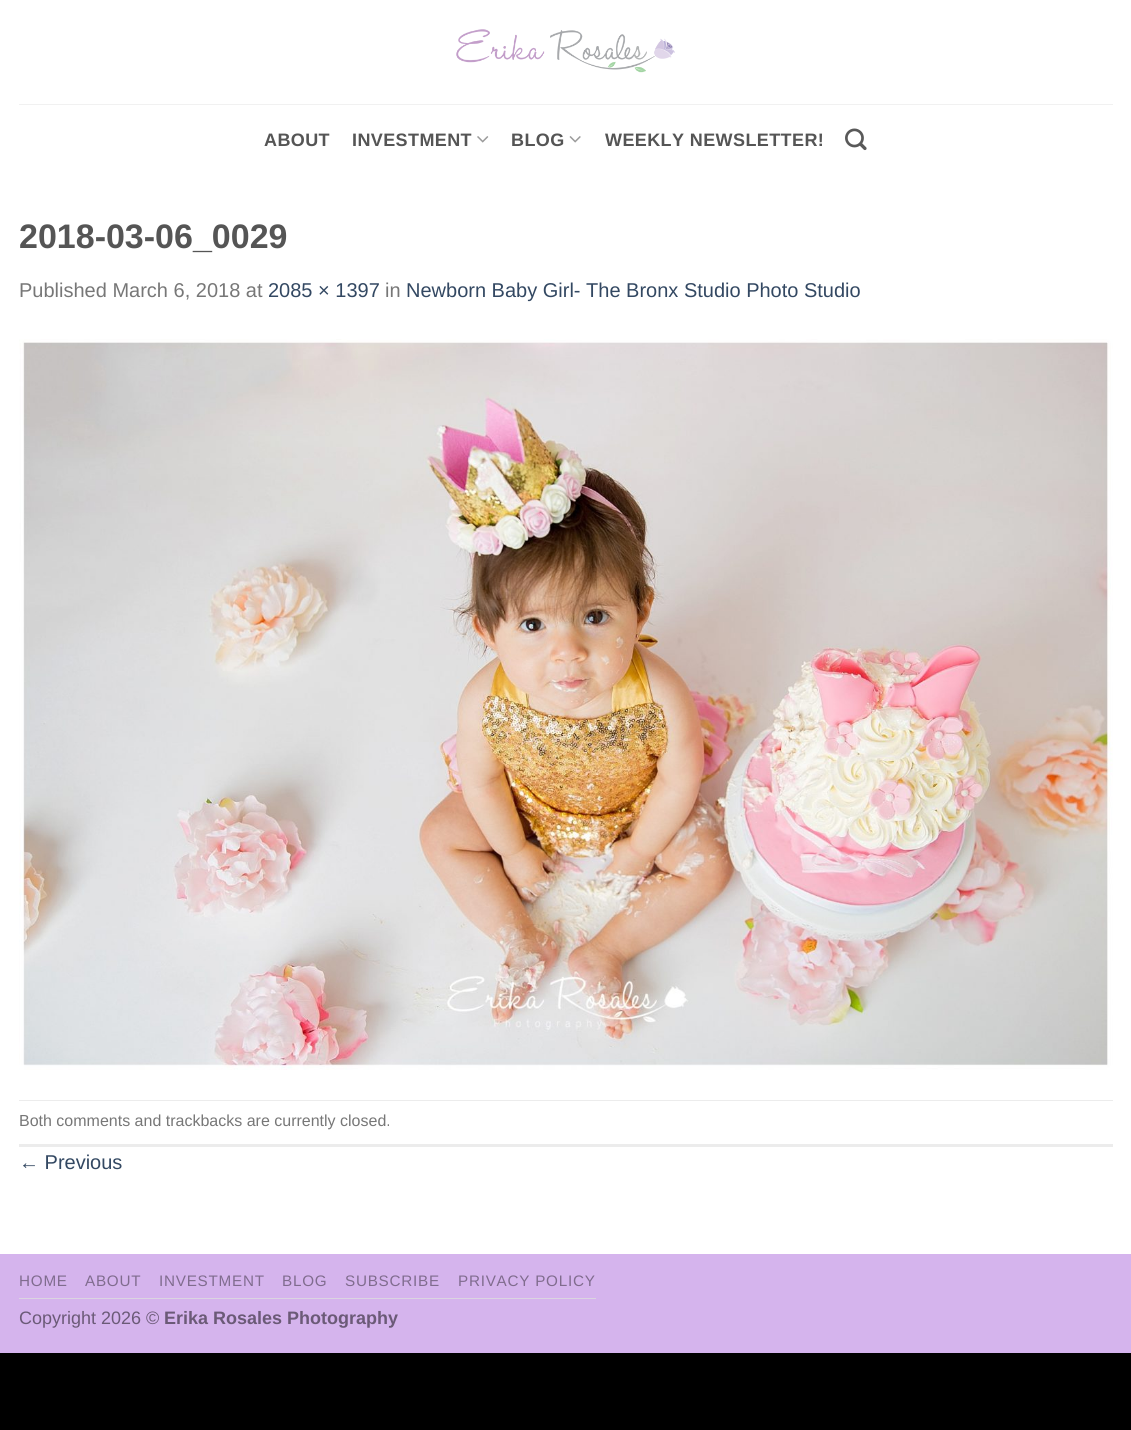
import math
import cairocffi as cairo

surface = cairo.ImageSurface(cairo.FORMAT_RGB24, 1131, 1430)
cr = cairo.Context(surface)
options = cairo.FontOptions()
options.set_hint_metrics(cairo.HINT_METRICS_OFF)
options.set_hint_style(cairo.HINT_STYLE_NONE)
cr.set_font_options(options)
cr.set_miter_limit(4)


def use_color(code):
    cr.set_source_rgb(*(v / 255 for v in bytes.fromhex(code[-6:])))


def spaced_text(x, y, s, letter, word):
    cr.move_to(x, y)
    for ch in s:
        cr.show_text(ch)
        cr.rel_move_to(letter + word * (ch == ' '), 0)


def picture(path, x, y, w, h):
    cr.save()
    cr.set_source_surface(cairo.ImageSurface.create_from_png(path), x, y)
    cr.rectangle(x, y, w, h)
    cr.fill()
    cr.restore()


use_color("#000000")
cr.paint()
use_color("#ffffff")
cr.rectangle(0, 0, 1131, 1254)
cr.fill()
picture("img1.png", 456, 29, 219, 44)
use_color("#f1f1f1")
cr.rectangle(19, 104, 1094, 1)
cr.fill()
cr.select_font_face("Liberation Sans", cairo.FONT_SLANT_NORMAL, cairo.FONT_WEIGHT_BOLD)
cr.set_font_size(18)
use_color("#555555")
spaced_text(264, 146, "ABOUT", 0.4, 0)
spaced_text(352, 146, "INVESTMENT", 0.4, 0)
picture("img2.png", 477, 136, 12, 7)
spaced_text(511, 146, "BLOG", 0.4, 0)
picture("img3.png", 569, 136, 12, 7)
spaced_text(605, 146, "WEEKLY NEWSLETTER!", 0.4, 0)
picture("img4.png", 845, 128, 22, 23)
cr.set_font_size(34)
cr.move_to(19, 248)
cr.show_text("2018-03-06_0029")
cr.select_font_face("Liberation Sans")
cr.set_font_size(20)
use_color("#777777")
cr.move_to(19, 297)
cr.show_text("Published March 6, 2018 at")
use_color("#334862")
cr.move_to(268, 297)
cr.show_text("2085 × 1397")
use_color("#777777")
cr.move_to(385, 297)
cr.show_text("in")
use_color("#334862")
cr.move_to(406, 297)
cr.show_text("Newborn Baby Girl- The Bronx Studio Photo Studio")
picture("img5.png", 19, 339, 1094, 731)
use_color("#ececec")
cr.rectangle(19, 1100, 1094, 1)
cr.fill()
cr.rectangle(19, 1144, 1094, 3)
cr.fill()
cr.set_font_size(16)
use_color("#777777")
cr.move_to(19, 1126)
cr.show_text("Both comments and trackbacks are currently closed.")
cr.set_font_size(20)
use_color("#334862")
cr.move_to(19, 1169)
cr.show_text("← Previous")
use_color("#d5b4ed")
cr.rectangle(0, 1254, 1131, 99)
cr.fill()
use_color("#dbd5e0")
cr.rectangle(19, 1298, 577, 1)
cr.fill()
cr.set_font_size(15.25)
use_color("#806c8e")
spaced_text(19, 1286, "HOME", 0.75, 0)
spaced_text(85, 1286, "ABOUT", 0.75, 0)
spaced_text(159, 1286, "INVESTMENT", 0.75, 0)
spaced_text(282, 1286, "BLOG", 0.75, 0)
spaced_text(345, 1286, "SUBSCRIBE", 0.75, 0)
spaced_text(458, 1286, "PRIVACY POLICY", 0.75, 0)
cr.set_font_size(18)
use_color("#6b5a77")
cr.move_to(19, 1324)
cr.show_text("Copyright 2026 ©")
cr.select_font_face("Liberation Sans", cairo.FONT_SLANT_NORMAL, cairo.FONT_WEIGHT_BOLD)
cr.move_to(164, 1324)
cr.show_text("Erika Rosales Photography")
surface.write_to_png("result.png")
